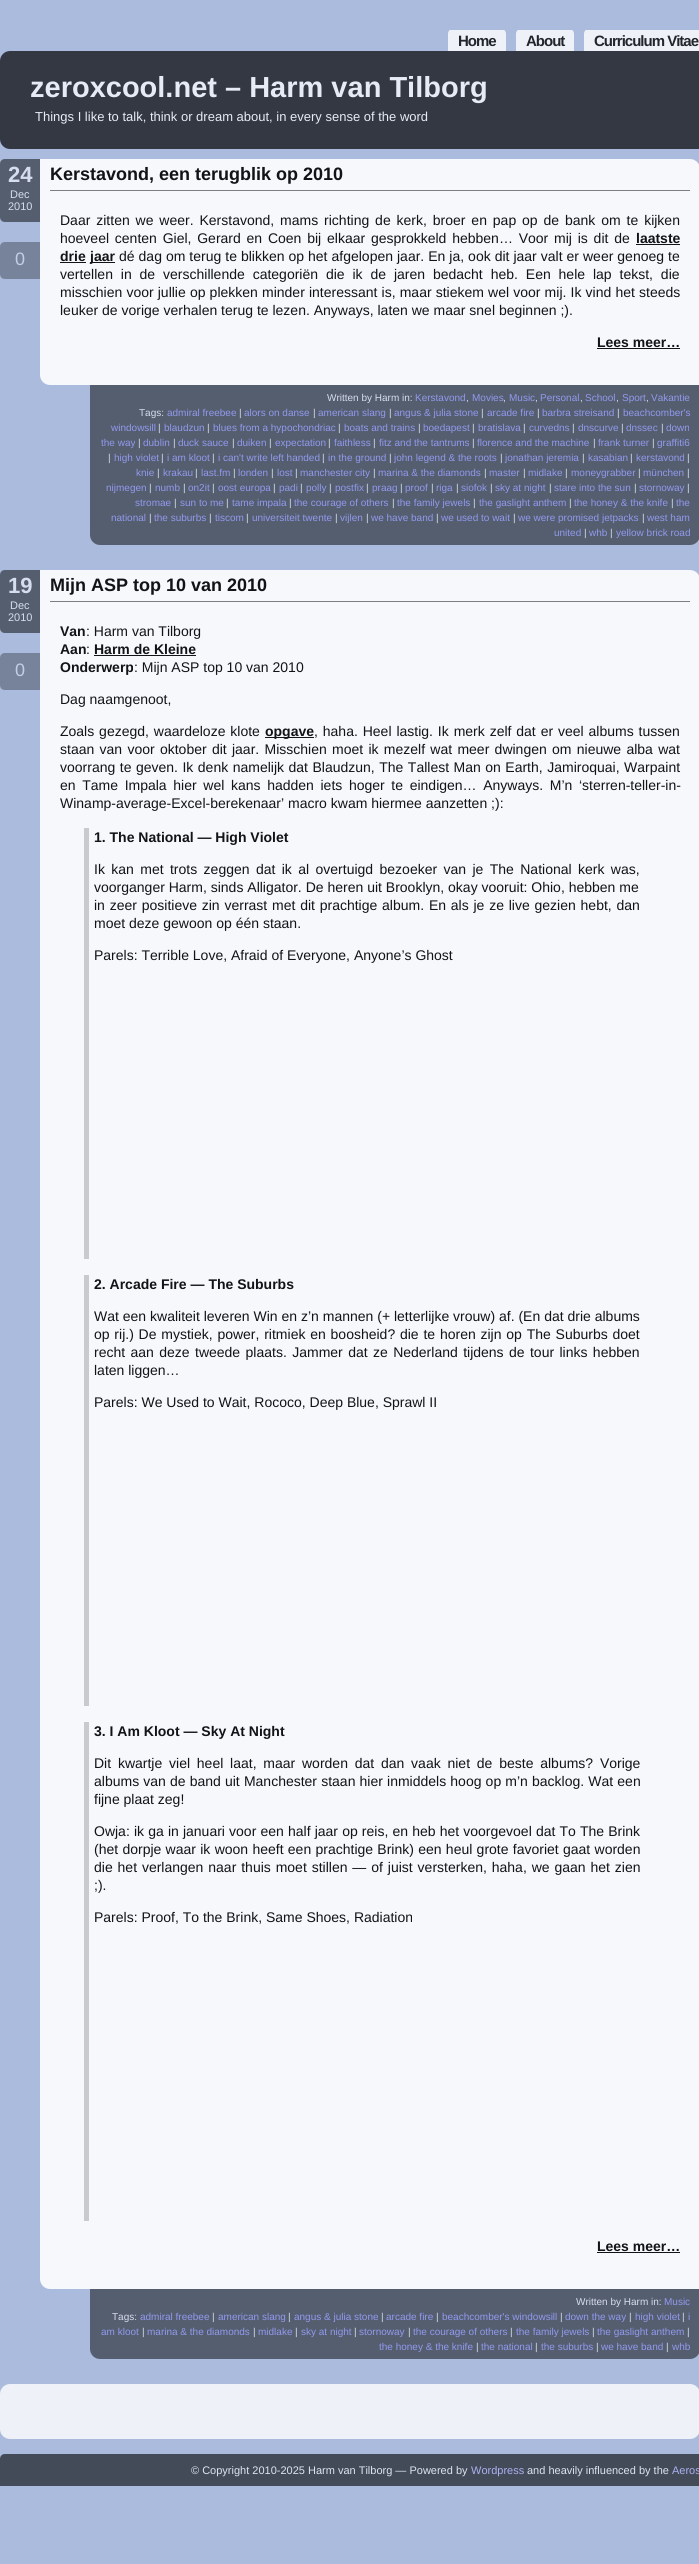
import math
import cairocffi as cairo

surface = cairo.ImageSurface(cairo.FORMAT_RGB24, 699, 2564)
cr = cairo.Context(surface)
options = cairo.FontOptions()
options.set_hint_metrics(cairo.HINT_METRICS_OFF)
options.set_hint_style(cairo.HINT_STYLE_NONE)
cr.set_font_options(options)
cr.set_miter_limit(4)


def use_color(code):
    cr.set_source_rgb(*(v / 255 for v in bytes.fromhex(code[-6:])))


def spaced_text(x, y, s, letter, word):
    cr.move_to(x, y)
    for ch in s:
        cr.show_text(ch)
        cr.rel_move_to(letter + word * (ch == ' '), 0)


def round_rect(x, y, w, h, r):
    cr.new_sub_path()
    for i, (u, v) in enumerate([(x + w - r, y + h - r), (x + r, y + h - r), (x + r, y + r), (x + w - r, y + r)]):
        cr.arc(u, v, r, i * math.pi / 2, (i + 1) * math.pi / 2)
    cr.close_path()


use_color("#aabbdd")
cr.paint()
cr.save()
cr.rectangle(0, 30, 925, 21)
cr.clip()
use_color("#eef1f8")
cr.new_path()
cr.move_to(453, 29)
cr.line_to(501, 29)
cr.curve_to(504, 29, 506, 31, 506, 34)
cr.line_to(506, 52)
cr.line_to(448, 52)
cr.line_to(448, 34)
cr.curve_to(448, 31, 450, 29, 453, 29)
cr.close_path()
cr.fill()
cr.restore()
cr.select_font_face("Liberation Sans", cairo.FONT_SLANT_NORMAL, cairo.FONT_WEIGHT_BOLD)
cr.set_font_size(15)
use_color("#22252c")
spaced_text(458, 46, "Home", -1, 0)
cr.save()
cr.rectangle(0, 30, 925, 21)
cr.clip()
use_color("#eef1f8")
cr.new_path()
cr.move_to(521, 29)
cr.line_to(569, 29)
cr.curve_to(572, 29, 574, 31, 574, 34)
cr.line_to(574, 52)
cr.line_to(516, 52)
cr.line_to(516, 34)
cr.curve_to(516, 31, 518, 29, 521, 29)
cr.close_path()
cr.fill()
cr.restore()
spaced_text(526, 46, "About", -1, 0)
cr.save()
cr.rectangle(0, 30, 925, 21)
cr.clip()
use_color("#eef1f8")
cr.new_path()
cr.move_to(589, 29)
cr.line_to(699, 29)
cr.curve_to(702, 29, 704, 31, 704, 34)
cr.line_to(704, 52)
cr.line_to(584, 52)
cr.line_to(584, 34)
cr.curve_to(584, 31, 586, 29, 589, 29)
cr.close_path()
cr.fill()
cr.restore()
spaced_text(594, 46, "Curriculum Vitae", -1, 0)
use_color("#333842")
cr.new_path()
cr.move_to(10, 51)
cr.line_to(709, 51)
cr.line_to(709, 139)
cr.curve_to(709, 144.5, 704.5, 149, 699, 149)
cr.line_to(10, 149)
cr.curve_to(4.5, 149, 0, 144.5, 0, 139)
cr.line_to(0, 61)
cr.curve_to(0, 55.5, 4.5, 51, 10, 51)
cr.close_path()
cr.fill()
cr.set_font_size(29)
use_color("#e6ebf5")
cr.move_to(30, 97)
cr.show_text("zeroxcool.net – Harm van Tilborg")
cr.select_font_face("Liberation Sans")
cr.set_font_size(13)
cr.move_to(35, 121)
cr.show_text("Things I like to talk, think or dream about, in every sense of the word")
use_color("#555e6f")
cr.new_path()
cr.move_to(5, 159)
cr.line_to(40, 159)
cr.line_to(40, 222)
cr.line_to(5, 222)
cr.curve_to(2, 222, 0, 220, 0, 217)
cr.line_to(0, 164)
cr.curve_to(0, 161, 2, 159, 5, 159)
cr.close_path()
cr.fill()
cr.select_font_face("Liberation Sans", cairo.FONT_SLANT_NORMAL, cairo.FONT_WEIGHT_BOLD)
cr.set_font_size(22)
use_color("#d5ddee")
cr.move_to(8, 182)
cr.show_text("24")
cr.select_font_face("Liberation Sans")
cr.set_font_size(11)
cr.move_to(10, 198)
cr.show_text("Dec")
cr.move_to(8, 210)
cr.show_text("2010")
use_color("#77839b")
cr.new_path()
cr.move_to(5, 242)
cr.line_to(40, 242)
cr.line_to(40, 279)
cr.line_to(5, 279)
cr.curve_to(2, 279, 0, 277, 0, 274)
cr.line_to(0, 247)
cr.curve_to(0, 244, 2, 242, 5, 242)
cr.close_path()
cr.fill()
cr.set_font_size(18)
use_color("#c4cfe7")
cr.move_to(15, 265)
cr.show_text("0")
use_color("#f7f8fc")
cr.new_path()
cr.move_to(40, 159)
cr.line_to(690, 159)
cr.curve_to(695.5, 159, 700, 163.5, 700, 169)
cr.line_to(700, 385)
cr.line_to(50, 385)
cr.curve_to(44.5, 385, 40, 380.5, 40, 375)
cr.close_path()
cr.fill()
use_color("#7c7e81")
cr.rectangle(50, 190, 640, 1)
cr.fill()
cr.select_font_face("Liberation Sans", cairo.FONT_SLANT_NORMAL, cairo.FONT_WEIGHT_BOLD)
use_color("#111316")
cr.move_to(50, 180)
cr.show_text("Kerstavond, een terugblik op 2010")
cr.select_font_face("Liberation Sans")
cr.set_font_size(14)
spaced_text(60, 225, "Daar zitten we weer. Kerstavond, mams richting de kerk, broer en pap op de bank om te kijken", 0, 2)
spaced_text(60, 243, "hoeveel centen Giel, Gerard en Coen bij elkaar gesprokkeld hebben… Voor mij is dit de", 0, 1.9)
cr.select_font_face("Liberation Sans", cairo.FONT_SLANT_NORMAL, cairo.FONT_WEIGHT_BOLD)
cr.move_to(636, 243)
cr.show_text("laatste")
cr.rectangle(636, 244, 44, 1)
cr.fill()
cr.move_to(60, 261)
cr.show_text("drie")
cr.rectangle(60, 262, 26, 1)
cr.fill()
cr.rectangle(90, 262, 25, 1)
cr.fill()
cr.move_to(90, 261)
cr.show_text("jaar")
cr.select_font_face("Liberation Sans")
spaced_text(119, 261, "dé dag om terug te blikken op het afgelopen jaar. En ja, ook dit jaar valt er weer genoeg te", 0, 0.1)
spaced_text(60, 279, "vertellen in de verschillende categoriën die ik de jaren bedacht heb. Een hele lap tekst, die", 0, 4)
spaced_text(60, 297, "misschien voor jullie op plekken minder interessant is, maar stiekem wel voor mij. Ik vind het steeds", 0, 0.25)
cr.move_to(60, 315)
cr.show_text("leuker de vorige verhalen terug te lezen. Anyways, laten we maar snel beginnen ;).")
cr.select_font_face("Liberation Sans", cairo.FONT_SLANT_NORMAL, cairo.FONT_WEIGHT_BOLD)
cr.move_to(597, 347)
cr.show_text("Lees meer…")
cr.rectangle(597, 348, 83, 1)
cr.fill()
use_color("#555e6e")
cr.new_path()
cr.move_to(90, 385)
cr.line_to(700, 385)
cr.line_to(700, 535)
cr.curve_to(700, 540.5, 695.5, 545, 690, 545)
cr.line_to(100, 545)
cr.curve_to(94.5, 545, 90, 540.5, 90, 535)
cr.close_path()
cr.fill()
cr.select_font_face("Liberation Sans")
cr.set_font_size(10)
use_color("#d5ddee")
cr.move_to(327, 401)
cr.show_text("Written by Harm in:")
use_color("#9199ee")
cr.move_to(415, 401)
cr.show_text("Kerstavond")
use_color("#d5ddee")
cr.move_to(466, 401)
cr.show_text(",")
use_color("#9199ee")
cr.move_to(472, 401)
cr.show_text("Movies")
use_color("#d5ddee")
cr.move_to(503, 401)
cr.show_text(",")
use_color("#9199ee")
cr.move_to(509, 401)
cr.show_text("Music")
use_color("#d5ddee")
cr.move_to(535, 401)
cr.show_text(",")
use_color("#9199ee")
cr.move_to(540, 401)
cr.show_text("Personal")
use_color("#d5ddee")
cr.move_to(580, 401)
cr.show_text(",")
use_color("#9199ee")
cr.move_to(585, 401)
cr.show_text("School")
use_color("#d5ddee")
cr.move_to(616, 401)
cr.show_text(",")
use_color("#9199ee")
cr.move_to(622, 401)
cr.show_text("Sport")
use_color("#d5ddee")
cr.move_to(646, 401)
cr.show_text(",")
use_color("#9199ee")
cr.move_to(651, 401)
cr.show_text("Vakantie")
use_color("#d5ddee")
cr.move_to(139, 416)
cr.show_text("Tags:")
use_color("#9199ee")
cr.move_to(167, 416)
cr.show_text("admiral freebee")
use_color("#d5ddee")
cr.move_to(239, 416)
cr.show_text("|")
use_color("#9199ee")
cr.move_to(244, 416)
cr.show_text("alors on danse")
use_color("#d5ddee")
cr.move_to(313, 416)
cr.show_text("|")
use_color("#9199ee")
cr.move_to(318, 416)
cr.show_text("american slang")
use_color("#d5ddee")
cr.move_to(389, 416)
cr.show_text("|")
use_color("#9199ee")
cr.move_to(394, 416)
cr.show_text("angus & julia stone")
use_color("#d5ddee")
cr.move_to(481, 416)
cr.show_text("|")
use_color("#9199ee")
cr.move_to(487, 416)
cr.show_text("arcade fire")
use_color("#d5ddee")
cr.move_to(537, 416)
cr.show_text("|")
use_color("#9199ee")
cr.move_to(542, 416)
cr.show_text("barbra streisand")
use_color("#d5ddee")
cr.move_to(617, 416)
cr.show_text("|")
use_color("#9199ee")
cr.move_to(623, 416)
cr.show_text("beachcomber's")
cr.move_to(111, 431)
cr.show_text("windowsill")
use_color("#d5ddee")
cr.move_to(158, 431)
cr.show_text("|")
use_color("#9199ee")
cr.move_to(164, 431)
cr.show_text("blaudzun")
use_color("#d5ddee")
cr.move_to(207, 431)
cr.show_text("|")
use_color("#9199ee")
cr.move_to(213, 431)
cr.show_text("blues from a hypochondriac")
use_color("#d5ddee")
cr.move_to(338, 431)
cr.show_text("|")
use_color("#9199ee")
cr.move_to(344, 431)
cr.show_text("boats and trains")
use_color("#d5ddee")
cr.move_to(418, 431)
cr.show_text("|")
use_color("#9199ee")
cr.move_to(423, 431)
cr.show_text("boedapest")
use_color("#d5ddee")
cr.move_to(472, 431)
cr.show_text("|")
use_color("#9199ee")
cr.move_to(478, 431)
cr.show_text("bratislava")
use_color("#d5ddee")
cr.move_to(523, 431)
cr.show_text("|")
use_color("#9199ee")
cr.move_to(529, 431)
cr.show_text("curvedns")
use_color("#d5ddee")
cr.move_to(572, 431)
cr.show_text("|")
use_color("#9199ee")
cr.move_to(578, 431)
cr.show_text("dnscurve")
use_color("#d5ddee")
cr.move_to(621, 431)
cr.show_text("|")
use_color("#9199ee")
cr.move_to(626, 431)
cr.show_text("dnssec")
use_color("#d5ddee")
cr.move_to(661, 431)
cr.show_text("|")
use_color("#9199ee")
cr.move_to(666, 431)
cr.show_text("down")
cr.move_to(101, 446)
cr.show_text("the way")
use_color("#d5ddee")
cr.move_to(138, 446)
cr.show_text("|")
use_color("#9199ee")
cr.move_to(143, 446)
cr.show_text("dublin")
use_color("#d5ddee")
cr.move_to(173, 446)
cr.show_text("|")
use_color("#9199ee")
cr.move_to(178, 446)
cr.show_text("duck sauce")
use_color("#d5ddee")
cr.move_to(232, 446)
cr.show_text("|")
use_color("#9199ee")
cr.move_to(237, 446)
cr.show_text("duiken")
use_color("#d5ddee")
cr.move_to(269, 446)
cr.show_text("|")
use_color("#9199ee")
cr.move_to(275, 446)
cr.show_text("expectation")
use_color("#d5ddee")
cr.move_to(328, 446)
cr.show_text("|")
use_color("#9199ee")
cr.move_to(334, 446)
cr.show_text("faithless")
use_color("#d5ddee")
cr.move_to(373, 446)
cr.show_text("|")
use_color("#9199ee")
cr.move_to(379, 446)
cr.show_text("fitz and the tantrums")
use_color("#d5ddee")
cr.move_to(472, 446)
cr.show_text("|")
use_color("#9199ee")
cr.move_to(477, 446)
cr.show_text("florence and the machine")
use_color("#d5ddee")
cr.move_to(593, 446)
cr.show_text("|")
use_color("#9199ee")
cr.move_to(598, 446)
cr.show_text("frank turner")
use_color("#d5ddee")
cr.move_to(652, 446)
cr.show_text("|")
use_color("#9199ee")
cr.move_to(657, 446)
cr.show_text("graffiti6")
use_color("#d5ddee")
cr.move_to(108, 461)
cr.show_text("|")
use_color("#9199ee")
cr.move_to(114, 461)
cr.show_text("high violet")
use_color("#d5ddee")
cr.move_to(161, 461)
cr.show_text("|")
use_color("#9199ee")
cr.move_to(167, 461)
cr.show_text("i am kloot")
use_color("#d5ddee")
cr.move_to(212, 461)
cr.show_text("|")
use_color("#9199ee")
cr.move_to(218, 461)
cr.show_text("i can't write left handed")
use_color("#d5ddee")
cr.move_to(322, 461)
cr.show_text("|")
use_color("#9199ee")
cr.move_to(328, 461)
cr.show_text("in the ground")
use_color("#d5ddee")
cr.move_to(389, 461)
cr.show_text("|")
use_color("#9199ee")
cr.move_to(394, 461)
cr.show_text("john legend & the roots")
use_color("#d5ddee")
cr.move_to(500, 461)
cr.show_text("|")
use_color("#9199ee")
cr.move_to(505, 461)
cr.show_text("jonathan jeremia")
use_color("#d5ddee")
cr.move_to(582, 461)
cr.show_text("|")
use_color("#9199ee")
cr.move_to(588, 461)
cr.show_text("kasabian")
use_color("#d5ddee")
cr.move_to(630, 461)
cr.show_text("|")
use_color("#9199ee")
cr.move_to(636, 461)
cr.show_text("kerstavond")
use_color("#d5ddee")
cr.move_to(687, 461)
cr.show_text("|")
use_color("#9199ee")
cr.move_to(136, 476)
cr.show_text("knie")
use_color("#d5ddee")
cr.move_to(157, 476)
cr.show_text("|")
use_color("#9199ee")
cr.move_to(163, 476)
cr.show_text("krakau")
use_color("#d5ddee")
cr.move_to(195, 476)
cr.show_text("|")
use_color("#9199ee")
cr.move_to(201, 476)
cr.show_text("last.fm")
use_color("#d5ddee")
cr.move_to(233, 476)
cr.show_text("|")
use_color("#9199ee")
cr.move_to(238, 476)
cr.show_text("londen")
use_color("#d5ddee")
cr.move_to(271, 476)
cr.show_text("|")
use_color("#9199ee")
cr.move_to(277, 476)
cr.show_text("lost")
use_color("#d5ddee")
cr.move_to(295, 476)
cr.show_text("|")
use_color("#9199ee")
cr.move_to(300, 476)
cr.show_text("manchester city")
use_color("#d5ddee")
cr.move_to(373, 476)
cr.show_text("|")
use_color("#9199ee")
cr.move_to(378, 476)
cr.show_text("marina & the diamonds")
use_color("#d5ddee")
cr.move_to(484, 476)
cr.show_text("|")
use_color("#9199ee")
cr.move_to(489, 476)
cr.show_text("master")
use_color("#d5ddee")
cr.move_to(523, 476)
cr.show_text("|")
use_color("#9199ee")
cr.move_to(528, 476)
cr.show_text("midlake")
use_color("#d5ddee")
cr.move_to(565, 476)
cr.show_text("|")
use_color("#9199ee")
cr.move_to(571, 476)
cr.show_text("moneygrabber")
use_color("#d5ddee")
cr.move_to(638, 476)
cr.show_text("|")
use_color("#9199ee")
cr.move_to(643, 476)
cr.show_text("münchen")
use_color("#d5ddee")
cr.move_to(687, 476)
cr.show_text("|")
use_color("#9199ee")
cr.move_to(106, 491)
cr.show_text("nijmegen")
use_color("#d5ddee")
cr.move_to(149, 491)
cr.show_text("|")
use_color("#9199ee")
cr.move_to(155, 491)
cr.show_text("numb")
use_color("#d5ddee")
cr.move_to(183, 491)
cr.show_text("|")
use_color("#9199ee")
cr.move_to(188, 491)
cr.show_text("on2it")
use_color("#d5ddee")
cr.move_to(212, 491)
cr.show_text("|")
use_color("#9199ee")
cr.move_to(218, 491)
cr.show_text("oost europa")
use_color("#d5ddee")
cr.move_to(273, 491)
cr.show_text("|")
use_color("#9199ee")
cr.move_to(279, 491)
cr.show_text("padi")
use_color("#d5ddee")
cr.move_to(300, 491)
cr.show_text("|")
use_color("#9199ee")
cr.move_to(306, 491)
cr.show_text("polly")
use_color("#d5ddee")
cr.move_to(329, 491)
cr.show_text("|")
use_color("#9199ee")
cr.move_to(335, 491)
cr.show_text("postfix")
use_color("#d5ddee")
cr.move_to(366, 491)
cr.show_text("|")
use_color("#9199ee")
cr.move_to(372, 491)
cr.show_text("praag")
use_color("#d5ddee")
cr.move_to(400, 491)
cr.show_text("|")
use_color("#9199ee")
cr.move_to(405, 491)
cr.show_text("proof")
use_color("#d5ddee")
cr.move_to(431, 491)
cr.show_text("|")
use_color("#9199ee")
cr.move_to(436, 491)
cr.show_text("riga")
use_color("#d5ddee")
cr.move_to(456, 491)
cr.show_text("|")
use_color("#9199ee")
cr.move_to(461, 491)
cr.show_text("siofok")
use_color("#d5ddee")
cr.move_to(490, 491)
cr.show_text("|")
use_color("#9199ee")
cr.move_to(495, 491)
cr.show_text("sky at night")
use_color("#d5ddee")
cr.move_to(549, 491)
cr.show_text("|")
use_color("#9199ee")
cr.move_to(554, 491)
cr.show_text("stare into the sun")
use_color("#d5ddee")
cr.move_to(634, 491)
cr.show_text("|")
use_color("#9199ee")
cr.move_to(639, 491)
cr.show_text("stornoway")
use_color("#d5ddee")
cr.move_to(687, 491)
cr.show_text("|")
use_color("#9199ee")
cr.move_to(135, 506)
cr.show_text("stromae")
use_color("#d5ddee")
cr.move_to(174, 506)
cr.show_text("|")
use_color("#9199ee")
cr.move_to(180, 506)
cr.show_text("sun to me")
use_color("#d5ddee")
cr.move_to(226, 506)
cr.show_text("|")
use_color("#9199ee")
cr.move_to(232, 506)
cr.show_text("tame impala")
use_color("#d5ddee")
cr.move_to(289, 506)
cr.show_text("|")
use_color("#9199ee")
cr.move_to(294, 506)
cr.show_text("the courage of others")
use_color("#d5ddee")
cr.move_to(392, 506)
cr.show_text("|")
use_color("#9199ee")
cr.move_to(397, 506)
cr.show_text("the family jewels")
use_color("#d5ddee")
cr.move_to(473, 506)
cr.show_text("|")
use_color("#9199ee")
cr.move_to(479, 506)
cr.show_text("the gaslight anthem")
use_color("#d5ddee")
cr.move_to(569, 506)
cr.show_text("|")
use_color("#9199ee")
cr.move_to(574, 506)
cr.show_text("the honey & the knife")
use_color("#d5ddee")
cr.move_to(671, 506)
cr.show_text("|")
use_color("#9199ee")
cr.move_to(676, 506)
cr.show_text("the")
cr.move_to(111, 521)
cr.show_text("national")
use_color("#d5ddee")
cr.move_to(149, 521)
cr.show_text("|")
use_color("#9199ee")
cr.move_to(154, 521)
cr.show_text("the suburbs")
use_color("#d5ddee")
cr.move_to(209, 521)
cr.show_text("|")
use_color("#9199ee")
cr.move_to(215, 521)
cr.show_text("tiscom")
use_color("#d5ddee")
cr.move_to(246, 521)
cr.show_text("|")
use_color("#9199ee")
cr.move_to(252, 521)
cr.show_text("universiteit twente")
use_color("#d5ddee")
cr.move_to(335, 521)
cr.show_text("|")
use_color("#9199ee")
cr.move_to(340, 521)
cr.show_text("vijlen")
use_color("#d5ddee")
cr.move_to(366, 521)
cr.show_text("|")
use_color("#9199ee")
cr.move_to(371, 521)
cr.show_text("we have band")
use_color("#d5ddee")
cr.move_to(436, 521)
cr.show_text("|")
use_color("#9199ee")
cr.move_to(441, 521)
cr.show_text("we used to wait")
use_color("#d5ddee")
cr.move_to(513, 521)
cr.show_text("|")
use_color("#9199ee")
cr.move_to(518, 521)
cr.show_text("we were promised jetpacks")
use_color("#d5ddee")
cr.move_to(642, 521)
cr.show_text("|")
use_color("#9199ee")
cr.move_to(647, 521)
cr.show_text("west ham")
cr.move_to(554, 536)
cr.show_text("united")
use_color("#d5ddee")
cr.move_to(584, 536)
cr.show_text("|")
use_color("#9199ee")
cr.move_to(589, 536)
cr.show_text("whb")
use_color("#d5ddee")
cr.move_to(610, 536)
cr.show_text("|")
use_color("#9199ee")
cr.move_to(616, 536)
cr.show_text("yellow brick road")
use_color("#555e6f")
cr.new_path()
cr.move_to(5, 570)
cr.line_to(40, 570)
cr.line_to(40, 633)
cr.line_to(5, 633)
cr.curve_to(2, 633, 0, 631, 0, 628)
cr.line_to(0, 575)
cr.curve_to(0, 572, 2, 570, 5, 570)
cr.close_path()
cr.fill()
cr.select_font_face("Liberation Sans", cairo.FONT_SLANT_NORMAL, cairo.FONT_WEIGHT_BOLD)
cr.set_font_size(22)
use_color("#d5ddee")
cr.move_to(8, 593)
cr.show_text("19")
cr.select_font_face("Liberation Sans")
cr.set_font_size(11)
cr.move_to(10, 609)
cr.show_text("Dec")
cr.move_to(8, 621)
cr.show_text("2010")
use_color("#77839b")
cr.new_path()
cr.move_to(5, 653)
cr.line_to(40, 653)
cr.line_to(40, 690)
cr.line_to(5, 690)
cr.curve_to(2, 690, 0, 688, 0, 685)
cr.line_to(0, 658)
cr.curve_to(0, 655, 2, 653, 5, 653)
cr.close_path()
cr.fill()
cr.set_font_size(18)
use_color("#c4cfe7")
cr.move_to(15, 676)
cr.show_text("0")
use_color("#f7f8fc")
cr.new_path()
cr.move_to(40, 570)
cr.line_to(690, 570)
cr.curve_to(695.5, 570, 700, 574.5, 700, 580)
cr.line_to(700, 2289)
cr.line_to(50, 2289)
cr.curve_to(44.5, 2289, 40, 2284.5, 40, 2279)
cr.close_path()
cr.fill()
use_color("#7c7e81")
cr.rectangle(50, 601, 640, 1)
cr.fill()
cr.select_font_face("Liberation Sans", cairo.FONT_SLANT_NORMAL, cairo.FONT_WEIGHT_BOLD)
use_color("#111316")
cr.move_to(50, 591)
cr.show_text("Mijn ASP top 10 van 2010")
cr.set_font_size(14)
cr.move_to(60, 636)
cr.show_text("Van")
cr.select_font_face("Liberation Sans")
cr.move_to(86, 636)
cr.show_text(": Harm van Tilborg")
cr.select_font_face("Liberation Sans", cairo.FONT_SLANT_NORMAL, cairo.FONT_WEIGHT_BOLD)
cr.move_to(60, 654)
cr.show_text("Aan")
cr.select_font_face("Liberation Sans")
cr.move_to(86, 654)
cr.show_text(":")
cr.select_font_face("Liberation Sans", cairo.FONT_SLANT_NORMAL, cairo.FONT_WEIGHT_BOLD)
cr.move_to(94, 654)
cr.show_text("Harm de Kleine")
cr.rectangle(94, 655, 102, 1)
cr.fill()
cr.move_to(60, 672)
cr.show_text("Onderwerp")
cr.select_font_face("Liberation Sans")
cr.move_to(134, 672)
cr.show_text(": Mijn ASP top 10 van 2010")
cr.move_to(60, 704)
cr.show_text("Dag naamgenoot,")
spaced_text(60, 736, "Zoals gezegd, waardeloze klote", 0, 1)
cr.rectangle(265, 737, 49, 1)
cr.fill()
cr.select_font_face("Liberation Sans", cairo.FONT_SLANT_NORMAL, cairo.FONT_WEIGHT_BOLD)
cr.move_to(265, 736)
cr.show_text("opgave")
cr.select_font_face("Liberation Sans")
spaced_text(314, 736, ", haha. Heel lastig. Ik merk zelf dat er veel albums tussen", 0, 1)
spaced_text(60, 754, "staan van voor oktober dit jaar. Misschien moet ik mezelf wat meer dwingen om nieuwe alba wat", 0, 1.4)
spaced_text(60, 772, "voorrang te geven. Ik denk namelijk dat Blaudzun, The Tallest Man on Earth, Jamiroquai, Warpaint", 0, 0.6)
spaced_text(60, 790, "en Tame Impala hier wel kans hadden iets hoger te eindigen… Anyways. M’n ‘sterren-teller-in-", 0, 2.75)
cr.move_to(60, 808)
cr.show_text("Winamp-average-Excel-berekenaar’ macro kwam hiermee aanzetten ;):")
use_color("#c9cace")
cr.rectangle(84, 828, 5, 431)
cr.fill()
cr.select_font_face("Liberation Sans", cairo.FONT_SLANT_NORMAL, cairo.FONT_WEIGHT_BOLD)
use_color("#111316")
cr.move_to(94, 842)
cr.show_text("1. The National — High Violet")
cr.select_font_face("Liberation Sans")
spaced_text(94, 874, "Ik kan met trots zeggen dat ik al overtuigd bezoeker van je The National kerk was,", 0, 2.5)
cr.move_to(94, 892)
cr.show_text("voorganger Harm, sinds Alligator. De heren uit Brooklyn, okay vooruit: Ohio, hebben me")
spaced_text(94, 910, "in zeer positieve zin verrast met dit prachtige album. En als je ze live gezien hebt, dan", 0, 0.9)
cr.move_to(94, 928)
cr.show_text("moet deze gewoon op één staan.")
cr.move_to(94, 960)
cr.show_text("Parels: Terrible Love, Afraid of Everyone, Anyone’s Ghost")
use_color("#c9cace")
cr.rectangle(84, 1275, 5, 431)
cr.fill()
cr.select_font_face("Liberation Sans", cairo.FONT_SLANT_NORMAL, cairo.FONT_WEIGHT_BOLD)
use_color("#111316")
cr.move_to(94, 1289)
cr.show_text("2. Arcade Fire — The Suburbs")
cr.select_font_face("Liberation Sans")
cr.move_to(94, 1321)
cr.show_text("Wat een kwaliteit leveren Win en z’n mannen (+ letterlijke vrouw) af. (En dat drie albums")
spaced_text(94, 1339, "op rij.) De mystiek, power, ritmiek en boosheid? die te horen zijn op The Suburbs doet", 0, 0.9)
spaced_text(94, 1357, "recht aan deze tweede plaats. Jammer dat ze Nederland tijdens de tour links hebben", 0, 1.5)
cr.move_to(94, 1375)
cr.show_text("laten liggen…")
cr.move_to(94, 1407)
cr.show_text("Parels: We Used to Wait, Rococo, Deep Blue, Sprawl II")
use_color("#c9cace")
cr.rectangle(84, 1722, 5, 499)
cr.fill()
cr.select_font_face("Liberation Sans", cairo.FONT_SLANT_NORMAL, cairo.FONT_WEIGHT_BOLD)
use_color("#111316")
cr.move_to(94, 1736)
cr.show_text("3. I Am Kloot — Sky At Night")
cr.select_font_face("Liberation Sans")
spaced_text(94, 1768, "Dit kwartje viel heel laat, maar worden dat dan vaak niet de beste albums? Vorige", 0, 2.9)
spaced_text(94, 1786, "albums van de band uit Manchester staan hier inmiddels hoog op m’n backlog. Wat een", 0, 0.25)
cr.move_to(94, 1804)
cr.show_text("fijne plaat zeg!")
spaced_text(94, 1836, "Owja: ik ga in januari voor een half jaar op reis, en heb het voorgevoel dat To The Brink", 0, 0.25)
spaced_text(94, 1854, "(het dorpje waar ik woon heeft een prachtige Brink) een heul grote favoriet gaat worden", 0, 0.4)
spaced_text(94, 1872, "die het verlangen naar thuis moet stillen — of juist versterken, haha, we gaan het zien", 0, 1)
cr.move_to(94, 1890)
cr.show_text(";).")
cr.move_to(94, 1922)
cr.show_text("Parels: Proof, To the Brink, Same Shoes, Radiation")
cr.select_font_face("Liberation Sans", cairo.FONT_SLANT_NORMAL, cairo.FONT_WEIGHT_BOLD)
cr.move_to(597, 2251)
cr.show_text("Lees meer…")
cr.rectangle(597, 2252, 83, 1)
cr.fill()
use_color("#555e6f")
cr.new_path()
cr.move_to(90, 2289)
cr.line_to(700, 2289)
cr.line_to(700, 2349)
cr.curve_to(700, 2354.5, 695.5, 2359, 690, 2359)
cr.line_to(100, 2359)
cr.curve_to(94.5, 2359, 90, 2354.5, 90, 2349)
cr.close_path()
cr.fill()
cr.select_font_face("Liberation Sans")
cr.set_font_size(10)
use_color("#d5ddee")
cr.move_to(576, 2305)
cr.show_text("Written by Harm in:")
use_color("#9199ee")
cr.move_to(664, 2305)
cr.show_text("Music")
use_color("#d5ddee")
cr.move_to(112, 2320)
cr.show_text("Tags:")
use_color("#9199ee")
cr.move_to(140, 2320)
cr.show_text("admiral freebee")
use_color("#d5ddee")
cr.move_to(212, 2320)
cr.show_text("|")
use_color("#9199ee")
cr.move_to(218, 2320)
cr.show_text("american slang")
use_color("#d5ddee")
cr.move_to(288, 2320)
cr.show_text("|")
use_color("#9199ee")
cr.move_to(294, 2320)
cr.show_text("angus & julia stone")
use_color("#d5ddee")
cr.move_to(381, 2320)
cr.show_text("|")
use_color("#9199ee")
cr.move_to(386, 2320)
cr.show_text("arcade fire")
use_color("#d5ddee")
cr.move_to(436, 2320)
cr.show_text("|")
use_color("#9199ee")
cr.move_to(442, 2320)
cr.show_text("beachcomber's windowsill")
use_color("#d5ddee")
cr.move_to(560, 2320)
cr.show_text("|")
use_color("#9199ee")
cr.move_to(565, 2320)
cr.show_text("down the way")
use_color("#d5ddee")
cr.move_to(629, 2320)
cr.show_text("|")
use_color("#9199ee")
cr.move_to(635, 2320)
cr.show_text("high violet")
use_color("#d5ddee")
cr.move_to(682, 2320)
cr.show_text("|")
use_color("#9199ee")
cr.move_to(688, 2320)
cr.show_text("i")
cr.move_to(101, 2335)
cr.show_text("am kloot")
use_color("#d5ddee")
cr.move_to(142, 2335)
cr.show_text("|")
use_color("#9199ee")
cr.move_to(147, 2335)
cr.show_text("marina & the diamonds")
use_color("#d5ddee")
cr.move_to(253, 2335)
cr.show_text("|")
use_color("#9199ee")
cr.move_to(258, 2335)
cr.show_text("midlake")
use_color("#d5ddee")
cr.move_to(295, 2335)
cr.show_text("|")
use_color("#9199ee")
cr.move_to(301, 2335)
cr.show_text("sky at night")
use_color("#d5ddee")
cr.move_to(354, 2335)
cr.show_text("|")
use_color("#9199ee")
cr.move_to(359, 2335)
cr.show_text("stornoway")
use_color("#d5ddee")
cr.move_to(408, 2335)
cr.show_text("|")
use_color("#9199ee")
cr.move_to(413, 2335)
cr.show_text("the courage of others")
use_color("#d5ddee")
cr.move_to(510, 2335)
cr.show_text("|")
use_color("#9199ee")
cr.move_to(516, 2335)
cr.show_text("the family jewels")
use_color("#d5ddee")
cr.move_to(592, 2335)
cr.show_text("|")
use_color("#9199ee")
cr.move_to(597, 2335)
cr.show_text("the gaslight anthem")
use_color("#d5ddee")
cr.move_to(687, 2335)
cr.show_text("|")
use_color("#9199ee")
cr.move_to(379, 2350)
cr.show_text("the honey & the knife")
use_color("#d5ddee")
cr.move_to(476, 2350)
cr.show_text("|")
use_color("#9199ee")
cr.move_to(481, 2350)
cr.show_text("the national")
use_color("#d5ddee")
cr.move_to(535, 2350)
cr.show_text("|")
use_color("#9199ee")
cr.move_to(541, 2350)
cr.show_text("the suburbs")
use_color("#d5ddee")
cr.move_to(596, 2350)
cr.show_text("|")
use_color("#9199ee")
cr.move_to(601, 2350)
cr.show_text("we have band")
use_color("#d5ddee")
cr.move_to(666, 2350)
cr.show_text("|")
use_color("#9199ee")
cr.move_to(672, 2350)
cr.show_text("whb")
use_color("#eef1f8")
round_rect(0, 2384, 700, 55, 10)
cr.fill()
use_color("#444b58")
cr.new_path()
cr.move_to(5, 2454)
cr.line_to(699, 2454)
cr.curve_to(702, 2454, 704, 2456, 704, 2459)
cr.line_to(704, 2486)
cr.line_to(0, 2486)
cr.line_to(0, 2459)
cr.curve_to(0, 2456, 2, 2454, 5, 2454)
cr.close_path()
cr.fill()
cr.set_font_size(11)
use_color("#dde4f1")
cr.move_to(191, 2474)
cr.show_text("© Copyright 2010-2025 Harm van Tilborg — Powered by")
use_color("#aab1f1")
cr.move_to(471, 2474)
cr.show_text("Wordpress")
use_color("#dde4f1")
cr.move_to(527, 2474)
cr.show_text("and heavily influenced by the")
use_color("#aab1f1")
cr.move_to(672, 2474)
cr.show_text("Aeros")
surface.write_to_png("result.png")
